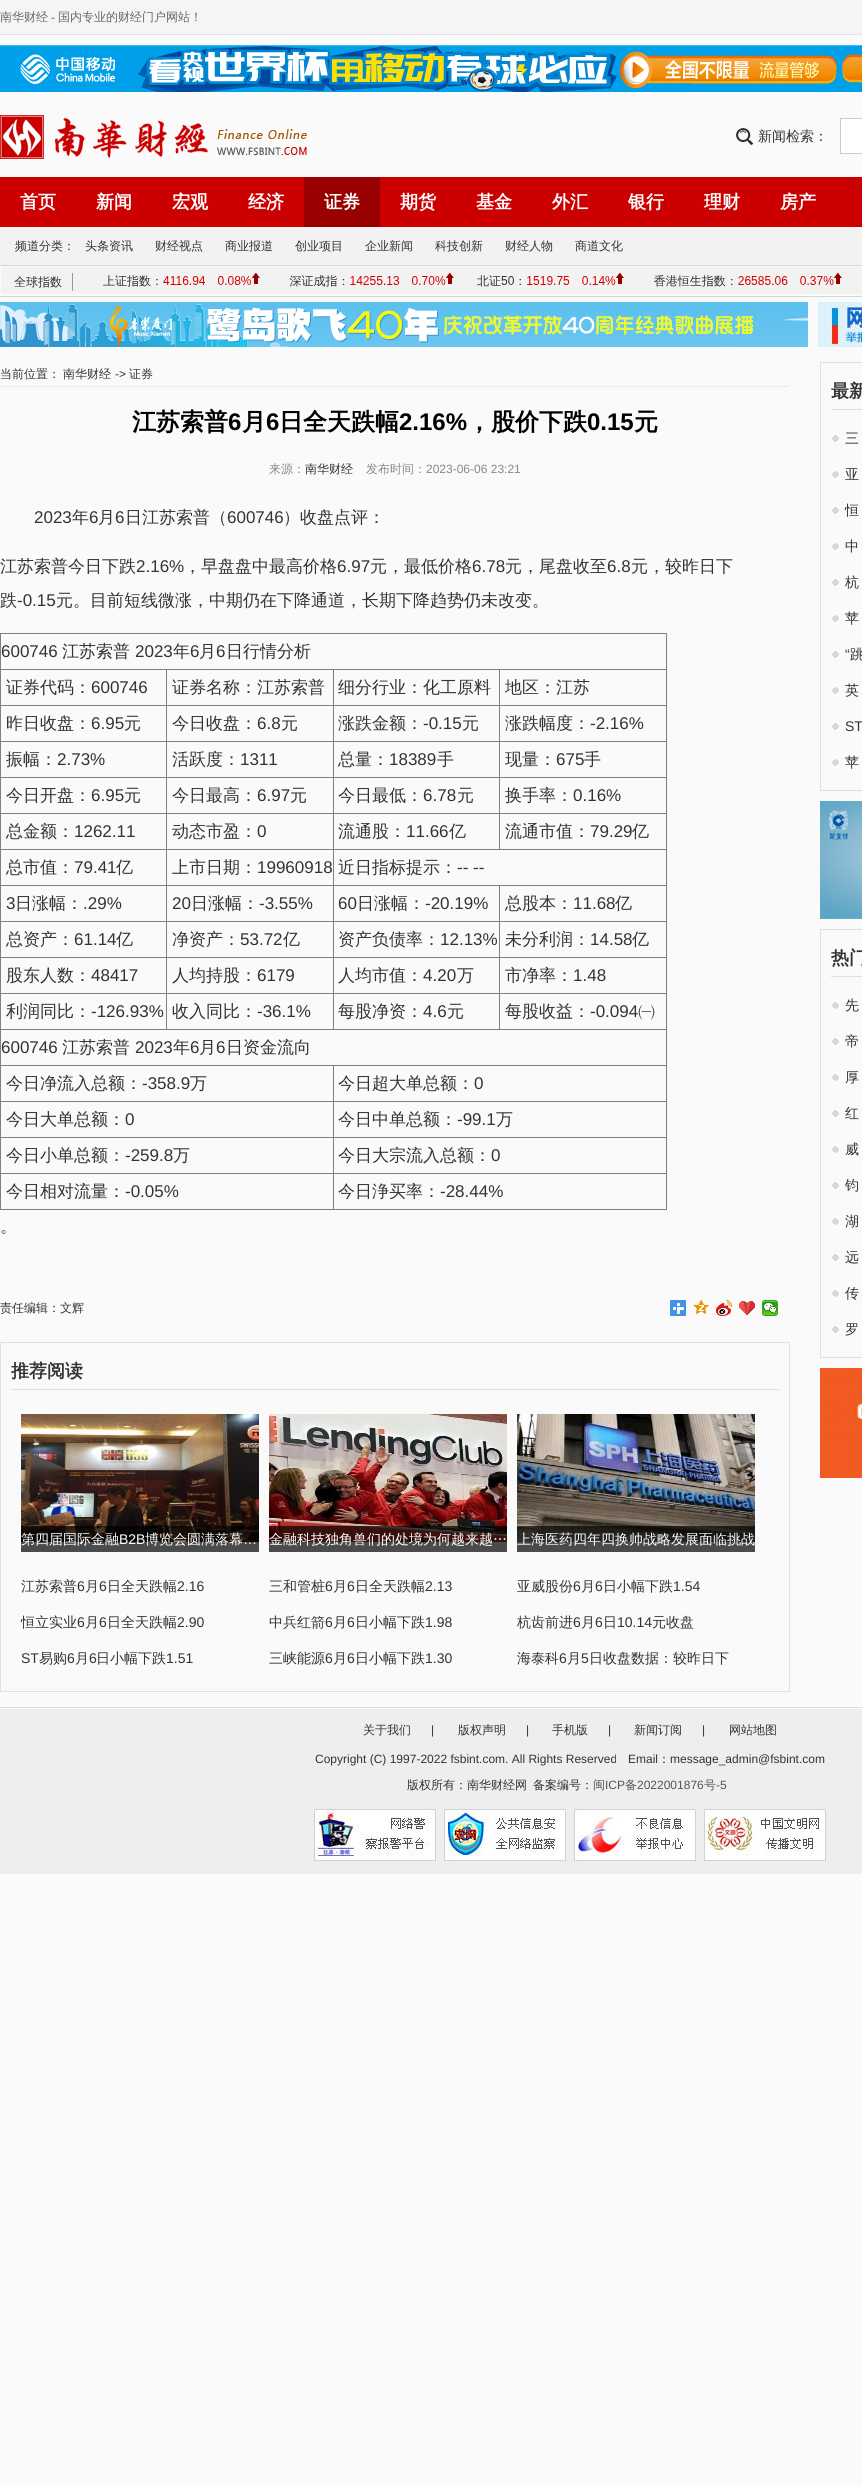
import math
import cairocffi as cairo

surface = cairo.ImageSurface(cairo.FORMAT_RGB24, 862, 2485)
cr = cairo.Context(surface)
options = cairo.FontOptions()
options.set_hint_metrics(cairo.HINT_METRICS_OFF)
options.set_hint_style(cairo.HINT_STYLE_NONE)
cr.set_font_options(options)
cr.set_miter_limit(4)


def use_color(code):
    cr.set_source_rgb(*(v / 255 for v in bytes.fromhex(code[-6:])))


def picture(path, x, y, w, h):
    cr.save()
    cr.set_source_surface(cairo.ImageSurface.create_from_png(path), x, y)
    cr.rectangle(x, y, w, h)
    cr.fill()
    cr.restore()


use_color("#fafafa")
cr.paint()
use_color("#f5f5f5")
cr.rectangle(0, 0, 862, 34)
cr.fill()
use_color("#e4e4e4")
cr.rectangle(0, 34, 862, 1)
cr.fill()
cr.select_font_face("WenQuanYi Zen Hei Medium")
cr.set_font_size(12)
use_color("#666666")
cr.move_to(0, 21)
cr.show_text("南华财经")
cr.select_font_face("Liberation Serif")
cr.move_to(51, 21)
cr.show_text("-")
cr.select_font_face("WenQuanYi Zen Hei Medium")
cr.move_to(58, 21)
cr.show_text("国内专业的财经门户网站！")
picture("img1.png", 0, 45, 862, 47)
picture("img2.png", 0, 115, 307, 44)
picture("img3.png", 736, 128, 17, 17)
cr.set_font_size(14)
use_color("#333333")
cr.move_to(758, 141)
cr.show_text("新闻检索：")
use_color("#ffffff")
cr.rectangle(840.5, 118.5, 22, 35)
cr.fill_preserve()
use_color("#cccccc")
cr.set_line_width(1)
cr.stroke()
use_color("#cc0000")
cr.rectangle(0, 177, 862, 50)
cr.fill()
cr.select_font_face("WenQuanYi Zen Hei", cairo.FONT_SLANT_NORMAL, cairo.FONT_WEIGHT_BOLD)
cr.set_font_size(18)
use_color("#ffffff")
cr.move_to(20, 208)
cr.show_text("首页")
cr.move_to(96, 208)
cr.show_text("新闻")
cr.move_to(172, 208)
cr.show_text("宏观")
cr.move_to(248, 208)
cr.show_text("经济")
use_color("#990000")
cr.rectangle(304, 177, 76, 50)
cr.fill()
use_color("#ffffff")
cr.move_to(324, 208)
cr.show_text("证券")
cr.move_to(400, 208)
cr.show_text("期货")
cr.move_to(476, 208)
cr.show_text("基金")
cr.move_to(552, 208)
cr.show_text("外汇")
cr.move_to(628, 208)
cr.show_text("银行")
cr.move_to(704, 208)
cr.show_text("理财")
cr.move_to(780, 208)
cr.show_text("房产")
use_color("#f2f2f2")
cr.rectangle(0, 227, 862, 38)
cr.fill()
use_color("#d5d5d5")
cr.rectangle(0, 265, 862, 1)
cr.fill()
cr.select_font_face("WenQuanYi Zen Hei Medium")
cr.set_font_size(12)
use_color("#333333")
cr.move_to(15, 250)
cr.show_text("频道分类：")
cr.move_to(85, 250)
cr.show_text("头条资讯")
cr.move_to(155, 250)
cr.show_text("财经视点")
cr.move_to(225, 250)
cr.show_text("商业报道")
cr.move_to(295, 250)
cr.show_text("创业项目")
cr.move_to(365, 250)
cr.show_text("企业新闻")
cr.move_to(435, 250)
cr.show_text("科技创新")
cr.move_to(505, 250)
cr.show_text("财经人物")
cr.move_to(575, 250)
cr.show_text("商道文化")
use_color("#d5d5d5")
cr.rectangle(0, 296, 862, 1)
cr.fill()
picture("img4.png", 1, 267, 861, 27)
picture("img5.png", 0, 302, 808, 45)
picture("img6.png", 818, 302, 44, 45)
cr.new_path()
cr.move_to(0, 386.5)
cr.line_to(790, 386.5)
use_color("#dddddd")
cr.set_dash([1, 1])
cr.stroke()
use_color("#333333")
cr.move_to(0, 378)
cr.show_text("当前位置：")
cr.move_to(63, 378)
cr.show_text("南华财经")
cr.select_font_face("Liberation Sans")
cr.move_to(115, 378)
cr.show_text("->")
cr.select_font_face("WenQuanYi Zen Hei Medium")
cr.move_to(129, 378)
cr.show_text("证券")
cr.select_font_face("WenQuanYi Zen Hei", cairo.FONT_SLANT_NORMAL, cairo.FONT_WEIGHT_BOLD)
cr.set_font_size(24)
use_color("#000000")
cr.move_to(132, 430)
cr.show_text("江苏索普")
cr.select_font_face("Liberation Sans", cairo.FONT_SLANT_NORMAL, cairo.FONT_WEIGHT_BOLD)
cr.move_to(228, 430)
cr.show_text("6")
cr.select_font_face("WenQuanYi Zen Hei", cairo.FONT_SLANT_NORMAL, cairo.FONT_WEIGHT_BOLD)
cr.move_to(242, 430)
cr.show_text("月")
cr.select_font_face("Liberation Sans", cairo.FONT_SLANT_NORMAL, cairo.FONT_WEIGHT_BOLD)
cr.move_to(266, 430)
cr.show_text("6")
cr.select_font_face("WenQuanYi Zen Hei", cairo.FONT_SLANT_NORMAL, cairo.FONT_WEIGHT_BOLD)
cr.move_to(279, 430)
cr.show_text("日全天跌幅")
cr.select_font_face("Liberation Sans", cairo.FONT_SLANT_NORMAL, cairo.FONT_WEIGHT_BOLD)
cr.move_to(399, 430)
cr.show_text("2.16%")
cr.select_font_face("WenQuanYi Zen Hei", cairo.FONT_SLANT_NORMAL, cairo.FONT_WEIGHT_BOLD)
cr.move_to(467, 430)
cr.show_text("，股价下跌")
cr.select_font_face("Liberation Sans", cairo.FONT_SLANT_NORMAL, cairo.FONT_WEIGHT_BOLD)
cr.move_to(587, 430)
cr.show_text("0.15")
cr.select_font_face("WenQuanYi Zen Hei", cairo.FONT_SLANT_NORMAL, cairo.FONT_WEIGHT_BOLD)
cr.move_to(634, 430)
cr.show_text("元")
cr.select_font_face("WenQuanYi Zen Hei Medium")
cr.set_font_size(12)
use_color("#888888")
cr.move_to(269, 473)
cr.show_text("来源：")
use_color("#333333")
cr.move_to(305, 473)
cr.show_text("南华财经")
use_color("#888888")
cr.move_to(366, 473)
cr.show_text("发布时间：")
cr.select_font_face("Liberation Sans")
cr.move_to(426, 473)
cr.show_text("2023-06-06 23:21")
cr.set_font_size(17)
use_color("#333333")
cr.move_to(34, 523)
cr.show_text("2023")
cr.select_font_face("WenQuanYi Zen Hei Medium")
cr.move_to(72, 523)
cr.show_text("年")
cr.select_font_face("Liberation Sans")
cr.move_to(89, 523)
cr.show_text("6")
cr.select_font_face("WenQuanYi Zen Hei Medium")
cr.move_to(98, 523)
cr.show_text("月")
cr.select_font_face("Liberation Sans")
cr.move_to(115, 523)
cr.show_text("6")
cr.select_font_face("WenQuanYi Zen Hei Medium")
cr.move_to(125, 523)
cr.show_text("日江苏索普（")
cr.select_font_face("Liberation Sans")
cr.move_to(227, 523)
cr.show_text("600746")
cr.select_font_face("WenQuanYi Zen Hei Medium")
cr.move_to(283, 523)
cr.show_text("）收盘点评：")
cr.move_to(0, 572)
cr.show_text("江苏索普今日下跌")
cr.select_font_face("Liberation Sans")
cr.move_to(136, 572)
cr.show_text("2.16%")
cr.select_font_face("WenQuanYi Zen Hei Medium")
cr.move_to(184, 572)
cr.show_text("，早盘盘中最高价格")
cr.select_font_face("Liberation Sans")
cr.move_to(337, 572)
cr.show_text("6.97")
cr.select_font_face("WenQuanYi Zen Hei Medium")
cr.move_to(370, 572)
cr.show_text("元，最低价格")
cr.select_font_face("Liberation Sans")
cr.move_to(472, 572)
cr.show_text("6.78")
cr.select_font_face("WenQuanYi Zen Hei Medium")
cr.move_to(505, 572)
cr.show_text("元，尾盘收至")
cr.select_font_face("Liberation Sans")
cr.move_to(607, 572)
cr.show_text("6.8")
cr.select_font_face("WenQuanYi Zen Hei Medium")
cr.move_to(631, 572)
cr.show_text("元，较昨日下")
cr.move_to(0, 606)
cr.show_text("跌")
cr.select_font_face("Liberation Sans")
cr.move_to(17, 606)
cr.show_text("-0.15")
cr.select_font_face("WenQuanYi Zen Hei Medium")
cr.move_to(56, 606)
cr.show_text("元。目前短线微涨，中期仍在下降通道，长期下降趋势仍未改变。")
use_color("#808080")
cr.rectangle(0, 633, 667, 1)
cr.fill()
cr.rectangle(666, 633, 1, 577)
cr.fill()
cr.rectangle(0, 1209, 667, 1)
cr.fill()
cr.rectangle(0, 633, 1, 577)
cr.fill()
cr.select_font_face("Liberation Sans")
use_color("#333333")
cr.move_to(1, 657)
cr.show_text("600746")
cr.select_font_face("WenQuanYi Zen Hei Medium")
cr.move_to(62, 657)
cr.show_text("江苏索普")
cr.select_font_face("Liberation Sans")
cr.move_to(135, 657)
cr.show_text("2023")
cr.select_font_face("WenQuanYi Zen Hei Medium")
cr.move_to(173, 657)
cr.show_text("年")
cr.select_font_face("Liberation Sans")
cr.move_to(190, 657)
cr.show_text("6")
cr.select_font_face("WenQuanYi Zen Hei Medium")
cr.move_to(199, 657)
cr.show_text("月")
cr.select_font_face("Liberation Sans")
cr.move_to(216, 657)
cr.show_text("6")
cr.select_font_face("WenQuanYi Zen Hei Medium")
cr.move_to(226, 657)
cr.show_text("日行情分析")
use_color("#808080")
cr.rectangle(499, 669, 168, 1)
cr.fill()
cr.rectangle(499, 705, 168, 1)
cr.fill()
cr.rectangle(499, 741, 168, 1)
cr.fill()
cr.rectangle(499, 777, 168, 1)
cr.fill()
cr.rectangle(499, 813, 168, 1)
cr.fill()
cr.rectangle(333, 849, 334, 1)
cr.fill()
cr.rectangle(499, 813, 1, 37)
cr.fill()
cr.rectangle(333, 813, 167, 1)
cr.fill()
cr.rectangle(499, 777, 1, 37)
cr.fill()
cr.rectangle(333, 777, 167, 1)
cr.fill()
cr.rectangle(499, 741, 1, 37)
cr.fill()
cr.rectangle(333, 741, 167, 1)
cr.fill()
cr.rectangle(499, 705, 1, 37)
cr.fill()
cr.rectangle(333, 705, 167, 1)
cr.fill()
cr.rectangle(499, 669, 1, 37)
cr.fill()
cr.rectangle(333, 669, 167, 1)
cr.fill()
cr.rectangle(499, 885, 168, 1)
cr.fill()
cr.rectangle(499, 921, 168, 1)
cr.fill()
cr.rectangle(499, 957, 168, 1)
cr.fill()
cr.rectangle(499, 993, 168, 1)
cr.fill()
cr.rectangle(0, 1029, 667, 1)
cr.fill()
cr.rectangle(499, 993, 1, 37)
cr.fill()
cr.rectangle(333, 993, 167, 1)
cr.fill()
cr.rectangle(499, 957, 1, 37)
cr.fill()
cr.rectangle(333, 957, 167, 1)
cr.fill()
cr.rectangle(499, 921, 1, 37)
cr.fill()
cr.rectangle(333, 921, 167, 1)
cr.fill()
cr.rectangle(499, 885, 1, 37)
cr.fill()
cr.rectangle(333, 885, 167, 1)
cr.fill()
cr.rectangle(333, 993, 1, 37)
cr.fill()
cr.rectangle(166, 993, 168, 1)
cr.fill()
cr.rectangle(333, 957, 1, 37)
cr.fill()
cr.rectangle(166, 957, 168, 1)
cr.fill()
cr.rectangle(333, 921, 1, 37)
cr.fill()
cr.rectangle(166, 921, 168, 1)
cr.fill()
cr.rectangle(333, 885, 1, 37)
cr.fill()
cr.rectangle(166, 885, 168, 1)
cr.fill()
cr.rectangle(333, 849, 1, 37)
cr.fill()
cr.rectangle(166, 849, 168, 1)
cr.fill()
cr.rectangle(333, 813, 1, 37)
cr.fill()
cr.rectangle(166, 813, 168, 1)
cr.fill()
cr.rectangle(333, 777, 1, 37)
cr.fill()
cr.rectangle(166, 777, 168, 1)
cr.fill()
cr.rectangle(333, 741, 1, 37)
cr.fill()
cr.rectangle(166, 741, 168, 1)
cr.fill()
cr.rectangle(333, 705, 1, 37)
cr.fill()
cr.rectangle(166, 705, 168, 1)
cr.fill()
cr.rectangle(333, 669, 1, 37)
cr.fill()
cr.rectangle(166, 669, 168, 1)
cr.fill()
cr.rectangle(166, 993, 1, 37)
cr.fill()
cr.rectangle(0, 993, 167, 1)
cr.fill()
cr.rectangle(166, 957, 1, 37)
cr.fill()
cr.rectangle(0, 957, 167, 1)
cr.fill()
cr.rectangle(166, 921, 1, 37)
cr.fill()
cr.rectangle(0, 921, 167, 1)
cr.fill()
cr.rectangle(166, 885, 1, 37)
cr.fill()
cr.rectangle(0, 885, 167, 1)
cr.fill()
cr.rectangle(166, 849, 1, 37)
cr.fill()
cr.rectangle(0, 849, 167, 1)
cr.fill()
cr.rectangle(166, 813, 1, 37)
cr.fill()
cr.rectangle(0, 813, 167, 1)
cr.fill()
cr.rectangle(166, 777, 1, 37)
cr.fill()
cr.rectangle(0, 777, 167, 1)
cr.fill()
cr.rectangle(166, 741, 1, 37)
cr.fill()
cr.rectangle(0, 741, 167, 1)
cr.fill()
cr.rectangle(166, 705, 1, 37)
cr.fill()
cr.rectangle(0, 705, 167, 1)
cr.fill()
cr.rectangle(166, 669, 1, 37)
cr.fill()
cr.rectangle(0, 669, 167, 1)
cr.fill()
use_color("#333333")
cr.move_to(6, 693)
cr.show_text("证券代码：")
cr.select_font_face("Liberation Sans")
cr.move_to(91, 693)
cr.show_text("600746")
cr.select_font_face("WenQuanYi Zen Hei Medium")
cr.move_to(172, 693)
cr.show_text("证券名称：江苏索普")
cr.move_to(338, 693)
cr.show_text("细分行业：化工原料")
cr.move_to(505, 693)
cr.show_text("地区：江苏")
cr.move_to(6, 729)
cr.show_text("昨日收盘：")
cr.select_font_face("Liberation Sans")
cr.move_to(91, 729)
cr.show_text("6.95")
cr.select_font_face("WenQuanYi Zen Hei Medium")
cr.move_to(124, 729)
cr.show_text("元")
cr.move_to(172, 729)
cr.show_text("今日收盘：")
cr.select_font_face("Liberation Sans")
cr.move_to(257, 729)
cr.show_text("6.8")
cr.select_font_face("WenQuanYi Zen Hei Medium")
cr.move_to(281, 729)
cr.show_text("元")
cr.move_to(338, 729)
cr.show_text("涨跌金额：")
cr.select_font_face("Liberation Sans")
cr.move_to(423, 729)
cr.show_text("-0.15")
cr.select_font_face("WenQuanYi Zen Hei Medium")
cr.move_to(462, 729)
cr.show_text("元")
cr.move_to(505, 729)
cr.show_text("涨跌幅度：")
cr.select_font_face("Liberation Sans")
cr.move_to(590, 729)
cr.show_text("-2.16%")
cr.select_font_face("WenQuanYi Zen Hei Medium")
cr.move_to(6, 765)
cr.show_text("振幅：")
cr.select_font_face("Liberation Sans")
cr.move_to(57, 765)
cr.show_text("2.73%")
cr.select_font_face("WenQuanYi Zen Hei Medium")
cr.move_to(172, 765)
cr.show_text("活跃度：")
cr.select_font_face("Liberation Sans")
cr.move_to(240, 765)
cr.show_text("1311")
cr.select_font_face("WenQuanYi Zen Hei Medium")
cr.move_to(338, 765)
cr.show_text("总量：")
cr.select_font_face("Liberation Sans")
cr.move_to(389, 765)
cr.show_text("18389")
cr.select_font_face("WenQuanYi Zen Hei Medium")
cr.move_to(437, 765)
cr.show_text("手")
cr.move_to(505, 765)
cr.show_text("现量：")
cr.select_font_face("Liberation Sans")
cr.move_to(556, 765)
cr.show_text("675")
cr.select_font_face("WenQuanYi Zen Hei Medium")
cr.move_to(584, 765)
cr.show_text("手")
cr.move_to(6, 801)
cr.show_text("今日开盘：")
cr.select_font_face("Liberation Sans")
cr.move_to(91, 801)
cr.show_text("6.95")
cr.select_font_face("WenQuanYi Zen Hei Medium")
cr.move_to(124, 801)
cr.show_text("元")
cr.move_to(172, 801)
cr.show_text("今日最高：")
cr.select_font_face("Liberation Sans")
cr.move_to(257, 801)
cr.show_text("6.97")
cr.select_font_face("WenQuanYi Zen Hei Medium")
cr.move_to(290, 801)
cr.show_text("元")
cr.move_to(338, 801)
cr.show_text("今日最低：")
cr.select_font_face("Liberation Sans")
cr.move_to(423, 801)
cr.show_text("6.78")
cr.select_font_face("WenQuanYi Zen Hei Medium")
cr.move_to(457, 801)
cr.show_text("元")
cr.move_to(505, 801)
cr.show_text("换手率：")
cr.select_font_face("Liberation Sans")
cr.move_to(573, 801)
cr.show_text("0.16%")
cr.select_font_face("WenQuanYi Zen Hei Medium")
cr.move_to(6, 837)
cr.show_text("总金额：")
cr.select_font_face("Liberation Sans")
cr.move_to(74, 837)
cr.show_text("1262.11")
cr.select_font_face("WenQuanYi Zen Hei Medium")
cr.move_to(172, 837)
cr.show_text("动态市盈：")
cr.select_font_face("Liberation Sans")
cr.move_to(257, 837)
cr.show_text("0")
cr.select_font_face("WenQuanYi Zen Hei Medium")
cr.move_to(338, 837)
cr.show_text("流通股：")
cr.select_font_face("Liberation Sans")
cr.move_to(406, 837)
cr.show_text("11.66")
cr.select_font_face("WenQuanYi Zen Hei Medium")
cr.move_to(449, 837)
cr.show_text("亿")
cr.move_to(505, 837)
cr.show_text("流通市值：")
cr.select_font_face("Liberation Sans")
cr.move_to(590, 837)
cr.show_text("79.29")
cr.select_font_face("WenQuanYi Zen Hei Medium")
cr.move_to(632, 837)
cr.show_text("亿")
cr.move_to(6, 873)
cr.show_text("总市值：")
cr.select_font_face("Liberation Sans")
cr.move_to(74, 873)
cr.show_text("79.41")
cr.select_font_face("WenQuanYi Zen Hei Medium")
cr.move_to(116, 873)
cr.show_text("亿")
cr.move_to(172, 873)
cr.show_text("上市日期：")
cr.select_font_face("Liberation Sans")
cr.move_to(257, 873)
cr.show_text("19960918")
cr.select_font_face("WenQuanYi Zen Hei Medium")
cr.move_to(338, 873)
cr.show_text("近日指标提示：")
cr.select_font_face("Liberation Sans")
cr.move_to(457, 873)
cr.show_text("-- --")
cr.move_to(6, 909)
cr.show_text("3")
cr.select_font_face("WenQuanYi Zen Hei Medium")
cr.move_to(15, 909)
cr.show_text("日涨幅：")
cr.select_font_face("Liberation Sans")
cr.move_to(83, 909)
cr.show_text(".29%")
cr.move_to(172, 909)
cr.show_text("20")
cr.select_font_face("WenQuanYi Zen Hei Medium")
cr.move_to(191, 909)
cr.show_text("日涨幅：")
cr.select_font_face("Liberation Sans")
cr.move_to(259, 909)
cr.show_text("-3.55%")
cr.move_to(338, 909)
cr.show_text("60")
cr.select_font_face("WenQuanYi Zen Hei Medium")
cr.move_to(357, 909)
cr.show_text("日涨幅：")
cr.select_font_face("Liberation Sans")
cr.move_to(425, 909)
cr.show_text("-20.19%")
cr.select_font_face("WenQuanYi Zen Hei Medium")
cr.move_to(505, 909)
cr.show_text("总股本：")
cr.select_font_face("Liberation Sans")
cr.move_to(573, 909)
cr.show_text("11.68")
cr.select_font_face("WenQuanYi Zen Hei Medium")
cr.move_to(615, 909)
cr.show_text("亿")
cr.move_to(6, 945)
cr.show_text("总资产：")
cr.select_font_face("Liberation Sans")
cr.move_to(74, 945)
cr.show_text("61.14")
cr.select_font_face("WenQuanYi Zen Hei Medium")
cr.move_to(116, 945)
cr.show_text("亿")
cr.move_to(172, 945)
cr.show_text("净资产：")
cr.select_font_face("Liberation Sans")
cr.move_to(240, 945)
cr.show_text("53.72")
cr.select_font_face("WenQuanYi Zen Hei Medium")
cr.move_to(283, 945)
cr.show_text("亿")
cr.move_to(338, 945)
cr.show_text("资产负债率：")
cr.select_font_face("Liberation Sans")
cr.move_to(440, 945)
cr.show_text("12.13%")
cr.select_font_face("WenQuanYi Zen Hei Medium")
cr.move_to(505, 945)
cr.show_text("未分利润：")
cr.select_font_face("Liberation Sans")
cr.move_to(590, 945)
cr.show_text("14.58")
cr.select_font_face("WenQuanYi Zen Hei Medium")
cr.move_to(632, 945)
cr.show_text("亿")
cr.move_to(6, 981)
cr.show_text("股东人数：")
cr.select_font_face("Liberation Sans")
cr.move_to(91, 981)
cr.show_text("48417")
cr.select_font_face("WenQuanYi Zen Hei Medium")
cr.move_to(172, 981)
cr.show_text("人均持股：")
cr.select_font_face("Liberation Sans")
cr.move_to(257, 981)
cr.show_text("6179")
cr.select_font_face("WenQuanYi Zen Hei Medium")
cr.move_to(338, 981)
cr.show_text("人均市值：")
cr.select_font_face("Liberation Sans")
cr.move_to(423, 981)
cr.show_text("4.20")
cr.select_font_face("WenQuanYi Zen Hei Medium")
cr.move_to(457, 981)
cr.show_text("万")
cr.move_to(505, 981)
cr.show_text("市净率：")
cr.select_font_face("Liberation Sans")
cr.move_to(573, 981)
cr.show_text("1.48")
cr.select_font_face("WenQuanYi Zen Hei Medium")
cr.move_to(6, 1017)
cr.show_text("利润同比：")
cr.select_font_face("Liberation Sans")
cr.move_to(91, 1017)
cr.show_text("-126.93%")
cr.select_font_face("WenQuanYi Zen Hei Medium")
cr.move_to(172, 1017)
cr.show_text("收入同比：")
cr.select_font_face("Liberation Sans")
cr.move_to(257, 1017)
cr.show_text("-36.1%")
cr.select_font_face("WenQuanYi Zen Hei Medium")
cr.move_to(338, 1017)
cr.show_text("每股净资：")
cr.select_font_face("Liberation Sans")
cr.move_to(423, 1017)
cr.show_text("4.6")
cr.select_font_face("WenQuanYi Zen Hei Medium")
cr.move_to(447, 1017)
cr.show_text("元")
cr.move_to(505, 1017)
cr.show_text("每股收益：")
cr.select_font_face("Liberation Sans")
cr.move_to(590, 1017)
cr.show_text("-0.094")
cr.select_font_face("WenQuanYi Zen Hei Medium")
cr.move_to(638, 1017)
cr.show_text("㈠")
cr.select_font_face("Liberation Sans")
cr.move_to(1, 1053)
cr.show_text("600746")
cr.select_font_face("WenQuanYi Zen Hei Medium")
cr.move_to(62, 1053)
cr.show_text("江苏索普")
cr.select_font_face("Liberation Sans")
cr.move_to(135, 1053)
cr.show_text("2023")
cr.select_font_face("WenQuanYi Zen Hei Medium")
cr.move_to(173, 1053)
cr.show_text("年")
cr.select_font_face("Liberation Sans")
cr.move_to(190, 1053)
cr.show_text("6")
cr.select_font_face("WenQuanYi Zen Hei Medium")
cr.move_to(199, 1053)
cr.show_text("月")
cr.select_font_face("Liberation Sans")
cr.move_to(216, 1053)
cr.show_text("6")
cr.select_font_face("WenQuanYi Zen Hei Medium")
cr.move_to(226, 1053)
cr.show_text("日资金流向")
use_color("#808080")
cr.rectangle(333, 1065, 334, 1)
cr.fill()
cr.rectangle(333, 1101, 334, 1)
cr.fill()
cr.rectangle(333, 1137, 334, 1)
cr.fill()
cr.rectangle(333, 1173, 334, 1)
cr.fill()
cr.rectangle(333, 1173, 1, 37)
cr.fill()
cr.rectangle(0, 1173, 334, 1)
cr.fill()
cr.rectangle(333, 1137, 1, 37)
cr.fill()
cr.rectangle(0, 1137, 334, 1)
cr.fill()
cr.rectangle(333, 1101, 1, 37)
cr.fill()
cr.rectangle(0, 1101, 334, 1)
cr.fill()
cr.rectangle(333, 1065, 1, 37)
cr.fill()
cr.rectangle(0, 1065, 334, 1)
cr.fill()
use_color("#333333")
cr.move_to(6, 1089)
cr.show_text("今日净流入总额：")
cr.select_font_face("Liberation Sans")
cr.move_to(142, 1089)
cr.show_text("-358.9")
cr.select_font_face("WenQuanYi Zen Hei Medium")
cr.move_to(190, 1089)
cr.show_text("万")
cr.move_to(338, 1089)
cr.show_text("今日超大单总额：")
cr.select_font_face("Liberation Sans")
cr.move_to(474, 1089)
cr.show_text("0")
cr.select_font_face("WenQuanYi Zen Hei Medium")
cr.move_to(6, 1125)
cr.show_text("今日大单总额：")
cr.select_font_face("Liberation Sans")
cr.move_to(125, 1125)
cr.show_text("0")
cr.select_font_face("WenQuanYi Zen Hei Medium")
cr.move_to(338, 1125)
cr.show_text("今日中单总额：")
cr.select_font_face("Liberation Sans")
cr.move_to(457, 1125)
cr.show_text("-99.1")
cr.select_font_face("WenQuanYi Zen Hei Medium")
cr.move_to(496, 1125)
cr.show_text("万")
cr.move_to(6, 1161)
cr.show_text("今日小单总额：")
cr.select_font_face("Liberation Sans")
cr.move_to(125, 1161)
cr.show_text("-259.8")
cr.select_font_face("WenQuanYi Zen Hei Medium")
cr.move_to(173, 1161)
cr.show_text("万")
cr.move_to(338, 1161)
cr.show_text("今日大宗流入总额：")
cr.select_font_face("Liberation Sans")
cr.move_to(491, 1161)
cr.show_text("0")
cr.select_font_face("WenQuanYi Zen Hei Medium")
cr.move_to(6, 1197)
cr.show_text("今日相对流量：")
cr.select_font_face("Liberation Sans")
cr.move_to(125, 1197)
cr.show_text("-0.05%")
cr.select_font_face("WenQuanYi Zen Hei Medium")
cr.move_to(338, 1197)
cr.show_text("今日浄买率：")
cr.select_font_face("Liberation Sans")
cr.move_to(440, 1197)
cr.show_text("-28.44%")
cr.select_font_face("WenQuanYi Zen Hei Medium")
cr.move_to(0, 1232)
cr.show_text("。")
cr.set_font_size(12)
cr.move_to(0, 1312)
cr.show_text("责任编辑：文辉")
picture("img7.png", 670, 1300, 16, 16)
picture("img8.png", 693, 1300, 16, 14)
picture("img9.png", 716, 1300, 16, 16)
picture("img10.png", 739, 1301, 16, 14)
picture("img11.png", 762, 1300, 16, 16)
cr.rectangle(0.5, 1342.5, 789, 349)
use_color("#e0e0e0")
cr.set_dash([])
cr.stroke()
cr.rectangle(11, 1389, 768, 1)
cr.fill()
cr.select_font_face("WenQuanYi Zen Hei", cairo.FONT_SLANT_NORMAL, cairo.FONT_WEIGHT_BOLD)
cr.set_font_size(18)
use_color("#333333")
cr.move_to(11, 1377)
cr.show_text("推荐阅读")
picture("img12.png", 21, 1414, 238, 128)
cr.set_source_rgba(0, 0, 0, 0.7)
cr.rectangle(21, 1526, 238, 26)
cr.fill()
cr.select_font_face("WenQuanYi Zen Hei Medium")
cr.set_font_size(14)
use_color("#ffffff")
cr.move_to(21, 1544)
cr.show_text("第四届国际金融")
cr.select_font_face("Liberation Sans")
cr.move_to(119, 1544)
cr.show_text("B2B")
cr.select_font_face("WenQuanYi Zen Hei Medium")
cr.move_to(145, 1544)
cr.show_text("博览会圆满落幕")
cr.select_font_face("Liberation Sans")
cr.move_to(243, 1544)
cr.show_text("…")
picture("img13.png", 269, 1414, 238, 128)
cr.set_source_rgba(0, 0, 0, 0.7)
cr.rectangle(269, 1526, 238, 26)
cr.fill()
cr.select_font_face("WenQuanYi Zen Hei Medium")
use_color("#ffffff")
cr.move_to(269, 1544)
cr.show_text("金融科技独角兽们的处境为何越来越…")
picture("img14.png", 517, 1414, 238, 128)
cr.set_source_rgba(0, 0, 0, 0.7)
cr.rectangle(517, 1526, 238, 26)
cr.fill()
use_color("#ffffff")
cr.move_to(517, 1544)
cr.show_text("上海医药四年四换帅战略发展面临挑战")
use_color("#333333")
cr.move_to(21, 1591)
cr.show_text("江苏索普")
cr.select_font_face("Liberation Sans")
cr.move_to(77, 1591)
cr.show_text("6")
cr.select_font_face("WenQuanYi Zen Hei Medium")
cr.move_to(85, 1591)
cr.show_text("月")
cr.select_font_face("Liberation Sans")
cr.move_to(99, 1591)
cr.show_text("6")
cr.select_font_face("WenQuanYi Zen Hei Medium")
cr.move_to(107, 1591)
cr.show_text("日全天跌幅")
cr.select_font_face("Liberation Sans")
cr.move_to(177, 1591)
cr.show_text("2.16")
cr.select_font_face("WenQuanYi Zen Hei Medium")
cr.move_to(269, 1591)
cr.show_text("三和管桩")
cr.select_font_face("Liberation Sans")
cr.move_to(325, 1591)
cr.show_text("6")
cr.select_font_face("WenQuanYi Zen Hei Medium")
cr.move_to(333, 1591)
cr.show_text("月")
cr.select_font_face("Liberation Sans")
cr.move_to(347, 1591)
cr.show_text("6")
cr.select_font_face("WenQuanYi Zen Hei Medium")
cr.move_to(355, 1591)
cr.show_text("日全天跌幅")
cr.select_font_face("Liberation Sans")
cr.move_to(425, 1591)
cr.show_text("2.13")
cr.select_font_face("WenQuanYi Zen Hei Medium")
cr.move_to(517, 1591)
cr.show_text("亚威股份")
cr.select_font_face("Liberation Sans")
cr.move_to(573, 1591)
cr.show_text("6")
cr.select_font_face("WenQuanYi Zen Hei Medium")
cr.move_to(581, 1591)
cr.show_text("月")
cr.select_font_face("Liberation Sans")
cr.move_to(595, 1591)
cr.show_text("6")
cr.select_font_face("WenQuanYi Zen Hei Medium")
cr.move_to(603, 1591)
cr.show_text("日小幅下跌")
cr.select_font_face("Liberation Sans")
cr.move_to(673, 1591)
cr.show_text("1.54")
cr.select_font_face("WenQuanYi Zen Hei Medium")
cr.move_to(21, 1627)
cr.show_text("恒立实业")
cr.select_font_face("Liberation Sans")
cr.move_to(77, 1627)
cr.show_text("6")
cr.select_font_face("WenQuanYi Zen Hei Medium")
cr.move_to(85, 1627)
cr.show_text("月")
cr.select_font_face("Liberation Sans")
cr.move_to(99, 1627)
cr.show_text("6")
cr.select_font_face("WenQuanYi Zen Hei Medium")
cr.move_to(107, 1627)
cr.show_text("日全天跌幅")
cr.select_font_face("Liberation Sans")
cr.move_to(177, 1627)
cr.show_text("2.90")
cr.select_font_face("WenQuanYi Zen Hei Medium")
cr.move_to(269, 1627)
cr.show_text("中兵红箭")
cr.select_font_face("Liberation Sans")
cr.move_to(325, 1627)
cr.show_text("6")
cr.select_font_face("WenQuanYi Zen Hei Medium")
cr.move_to(333, 1627)
cr.show_text("月")
cr.select_font_face("Liberation Sans")
cr.move_to(347, 1627)
cr.show_text("6")
cr.select_font_face("WenQuanYi Zen Hei Medium")
cr.move_to(355, 1627)
cr.show_text("日小幅下跌")
cr.select_font_face("Liberation Sans")
cr.move_to(425, 1627)
cr.show_text("1.98")
cr.select_font_face("WenQuanYi Zen Hei Medium")
cr.move_to(517, 1627)
cr.show_text("杭齿前进")
cr.select_font_face("Liberation Sans")
cr.move_to(573, 1627)
cr.show_text("6")
cr.select_font_face("WenQuanYi Zen Hei Medium")
cr.move_to(581, 1627)
cr.show_text("月")
cr.select_font_face("Liberation Sans")
cr.move_to(595, 1627)
cr.show_text("6")
cr.select_font_face("WenQuanYi Zen Hei Medium")
cr.move_to(603, 1627)
cr.show_text("日")
cr.select_font_face("Liberation Sans")
cr.move_to(617, 1627)
cr.show_text("10.14")
cr.select_font_face("WenQuanYi Zen Hei Medium")
cr.move_to(652, 1627)
cr.show_text("元收盘")
cr.select_font_face("Liberation Sans")
cr.move_to(21, 1663)
cr.show_text("ST")
cr.select_font_face("WenQuanYi Zen Hei Medium")
cr.move_to(39, 1663)
cr.show_text("易购")
cr.select_font_face("Liberation Sans")
cr.move_to(67, 1663)
cr.show_text("6")
cr.select_font_face("WenQuanYi Zen Hei Medium")
cr.move_to(75, 1663)
cr.show_text("月")
cr.select_font_face("Liberation Sans")
cr.move_to(89, 1663)
cr.show_text("6")
cr.select_font_face("WenQuanYi Zen Hei Medium")
cr.move_to(96, 1663)
cr.show_text("日小幅下跌")
cr.select_font_face("Liberation Sans")
cr.move_to(166, 1663)
cr.show_text("1.51")
cr.select_font_face("WenQuanYi Zen Hei Medium")
cr.move_to(269, 1663)
cr.show_text("三峡能源")
cr.select_font_face("Liberation Sans")
cr.move_to(325, 1663)
cr.show_text("6")
cr.select_font_face("WenQuanYi Zen Hei Medium")
cr.move_to(333, 1663)
cr.show_text("月")
cr.select_font_face("Liberation Sans")
cr.move_to(347, 1663)
cr.show_text("6")
cr.select_font_face("WenQuanYi Zen Hei Medium")
cr.move_to(355, 1663)
cr.show_text("日小幅下跌")
cr.select_font_face("Liberation Sans")
cr.move_to(425, 1663)
cr.show_text("1.30")
cr.select_font_face("WenQuanYi Zen Hei Medium")
cr.move_to(517, 1663)
cr.show_text("海泰科")
cr.select_font_face("Liberation Sans")
cr.move_to(559, 1663)
cr.show_text("6")
cr.select_font_face("WenQuanYi Zen Hei Medium")
cr.move_to(567, 1663)
cr.show_text("月")
cr.select_font_face("Liberation Sans")
cr.move_to(581, 1663)
cr.show_text("5")
cr.select_font_face("WenQuanYi Zen Hei Medium")
cr.move_to(589, 1663)
cr.show_text("日收盘数据：较昨日下")
cr.rectangle(820.5, 362.5, 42, 428)
use_color("#e0e0e0")
cr.stroke()
cr.rectangle(831, 409, 31, 1)
cr.fill()
cr.select_font_face("WenQuanYi Zen Hei", cairo.FONT_SLANT_NORMAL, cairo.FONT_WEIGHT_BOLD)
cr.set_font_size(18)
use_color("#333333")
cr.move_to(831, 397)
cr.show_text("最新")
picture("img15.png", 832, 435, 7, 7)
cr.select_font_face("WenQuanYi Zen Hei Medium")
cr.set_font_size(14)
cr.move_to(845, 443)
cr.show_text("三")
picture("img15.png", 832, 471, 7, 7)
cr.move_to(845, 479)
cr.show_text("亚")
picture("img15.png", 832, 507, 7, 7)
cr.move_to(845, 515)
cr.show_text("恒")
picture("img15.png", 832, 543, 7, 7)
cr.move_to(845, 551)
cr.show_text("中")
picture("img15.png", 832, 579, 7, 7)
cr.move_to(845, 587)
cr.show_text("杭")
picture("img15.png", 832, 615, 7, 7)
cr.move_to(845, 623)
cr.show_text("苹")
picture("img15.png", 832, 651, 7, 7)
cr.select_font_face("Liberation Sans")
cr.move_to(845, 659)
cr.show_text("“")
cr.select_font_face("WenQuanYi Zen Hei Medium")
cr.move_to(850, 659)
cr.show_text("跳")
picture("img15.png", 832, 687, 7, 7)
cr.move_to(845, 695)
cr.show_text("英")
picture("img15.png", 832, 723, 7, 7)
cr.select_font_face("Liberation Sans")
cr.move_to(845, 731)
cr.show_text("ST")
picture("img15.png", 832, 759, 7, 7)
cr.select_font_face("WenQuanYi Zen Hei Medium")
cr.move_to(845, 767)
cr.show_text("苹")
picture("img16.png", 820, 801, 42, 118)
cr.rectangle(820.5, 929.5, 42, 428)
use_color("#e0e0e0")
cr.stroke()
cr.rectangle(831, 976, 31, 1)
cr.fill()
cr.select_font_face("WenQuanYi Zen Hei", cairo.FONT_SLANT_NORMAL, cairo.FONT_WEIGHT_BOLD)
cr.set_font_size(18)
use_color("#333333")
cr.move_to(831, 964)
cr.show_text("热门")
picture("img15.png", 832, 1002, 7, 7)
cr.select_font_face("WenQuanYi Zen Hei Medium")
cr.set_font_size(14)
cr.move_to(845, 1010)
cr.show_text("先")
picture("img15.png", 832, 1038, 7, 7)
cr.move_to(845, 1046)
cr.show_text("帝")
picture("img15.png", 832, 1074, 7, 7)
cr.move_to(845, 1082)
cr.show_text("厚")
picture("img15.png", 832, 1110, 7, 7)
cr.move_to(845, 1118)
cr.show_text("红")
picture("img15.png", 832, 1146, 7, 7)
cr.move_to(845, 1154)
cr.show_text("威")
picture("img15.png", 832, 1182, 7, 7)
cr.move_to(845, 1190)
cr.show_text("钧")
picture("img15.png", 832, 1218, 7, 7)
cr.move_to(845, 1226)
cr.show_text("湖")
picture("img15.png", 832, 1254, 7, 7)
cr.move_to(845, 1262)
cr.show_text("远")
picture("img15.png", 832, 1290, 7, 7)
cr.move_to(845, 1298)
cr.show_text("传")
picture("img15.png", 832, 1326, 7, 7)
cr.move_to(845, 1334)
cr.show_text("罗")
picture("img17.png", 820, 1368, 42, 110)
use_color("#eeeeee")
cr.rectangle(0, 1709, 862, 165)
cr.fill()
use_color("#dddddd")
cr.rectangle(0, 1707, 862, 1)
cr.fill()
cr.set_font_size(12)
use_color("#333333")
cr.move_to(363, 1734)
cr.show_text("关于我们")
cr.select_font_face("Liberation Sans")
cr.move_to(431, 1734)
cr.show_text("|")
cr.select_font_face("WenQuanYi Zen Hei Medium")
cr.move_to(458, 1734)
cr.show_text("版权声明")
cr.select_font_face("Liberation Sans")
cr.move_to(526, 1734)
cr.show_text("|")
cr.select_font_face("WenQuanYi Zen Hei Medium")
cr.move_to(552, 1734)
cr.show_text("手机版")
cr.select_font_face("Liberation Sans")
cr.move_to(608, 1734)
cr.show_text("|")
cr.select_font_face("WenQuanYi Zen Hei Medium")
cr.move_to(634, 1734)
cr.show_text("新闻订阅")
cr.select_font_face("Liberation Sans")
cr.move_to(702, 1734)
cr.show_text("|")
cr.select_font_face("WenQuanYi Zen Hei Medium")
cr.move_to(729, 1734)
cr.show_text("网站地图")
cr.select_font_face("Liberation Sans")
cr.move_to(315, 1763)
cr.show_text("Copyright (C) 1997-2022 fsbint.com. All Rights Reserved")
cr.move_to(628, 1763)
cr.show_text("Email")
cr.select_font_face("WenQuanYi Zen Hei Medium")
cr.move_to(658, 1763)
cr.show_text("：")
cr.select_font_face("Liberation Sans")
cr.move_to(670, 1763)
cr.show_text("message_admin@fsbint.com")
cr.select_font_face("WenQuanYi Zen Hei Medium")
cr.move_to(407, 1789)
cr.show_text("版权所有：南华财经网")
cr.move_to(533, 1789)
cr.show_text("备案编号：")
use_color("#555555")
cr.move_to(593, 1789)
cr.show_text("闽")
cr.select_font_face("Liberation Sans")
cr.move_to(605, 1789)
cr.show_text("ICP")
cr.select_font_face("WenQuanYi Zen Hei Medium")
cr.move_to(625, 1789)
cr.show_text("备")
cr.select_font_face("Liberation Sans")
cr.move_to(637, 1789)
cr.show_text("2022001876")
cr.select_font_face("WenQuanYi Zen Hei Medium")
cr.move_to(704, 1789)
cr.show_text("号")
cr.select_font_face("Liberation Sans")
cr.move_to(716, 1789)
cr.show_text("-5")
picture("img18.png", 314, 1809, 122, 52)
picture("img19.png", 444, 1809, 122, 52)
picture("img20.png", 574, 1809, 122, 52)
picture("img21.png", 704, 1809, 122, 52)
surface.write_to_png("result.png")
